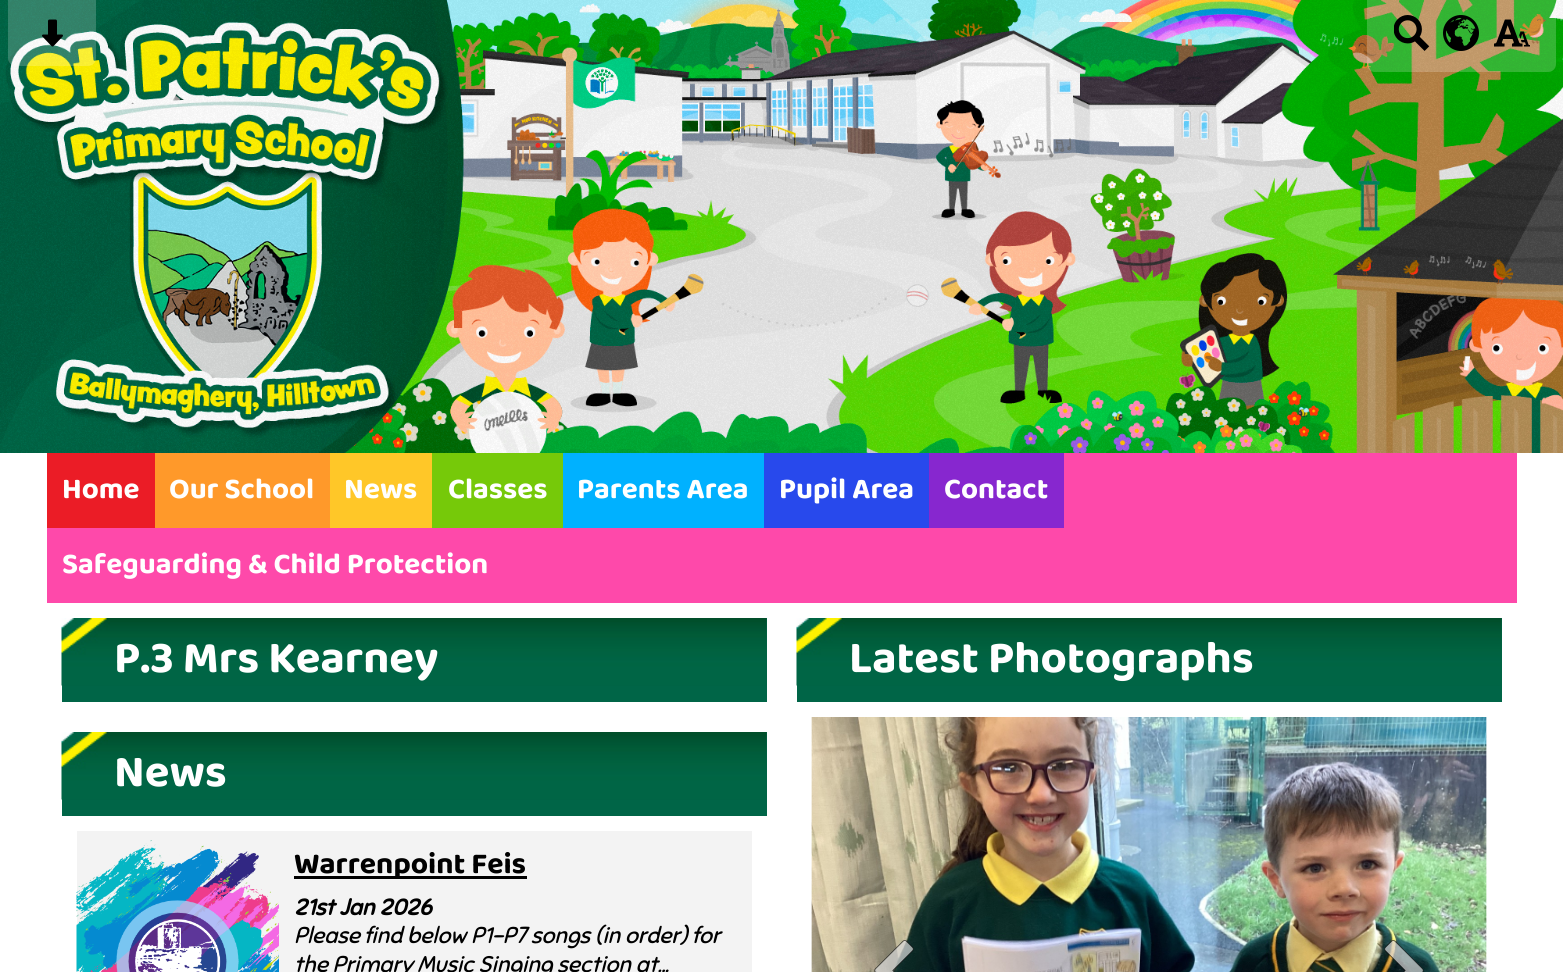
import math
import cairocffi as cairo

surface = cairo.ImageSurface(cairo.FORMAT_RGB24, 1563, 972)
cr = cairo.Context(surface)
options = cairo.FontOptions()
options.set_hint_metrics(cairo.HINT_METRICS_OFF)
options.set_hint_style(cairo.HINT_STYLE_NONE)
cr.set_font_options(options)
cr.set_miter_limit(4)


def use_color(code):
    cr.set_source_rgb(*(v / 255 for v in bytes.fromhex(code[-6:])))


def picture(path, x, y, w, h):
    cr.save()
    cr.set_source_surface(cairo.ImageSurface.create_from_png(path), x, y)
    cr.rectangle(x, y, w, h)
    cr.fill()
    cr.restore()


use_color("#ffffff")
cr.paint()
picture("img1.png", 0, 0, 1563, 453)
cr.set_source_rgba(1, 1, 1, 0.2)
cr.new_path()
cr.move_to(8, 0)
cr.line_to(96, 0)
cr.line_to(96, 58)
cr.curve_to(96, 62.5, 92.5, 66, 88, 66)
cr.line_to(16, 66)
cr.curve_to(11.5, 66, 8, 62.5, 8, 58)
cr.close_path()
cr.fill()
picture("img2.png", 42, 19, 21, 28)
cr.new_path()
cr.move_to(1367, 0)
cr.line_to(1556, 0)
cr.line_to(1556, 64)
cr.curve_to(1556, 68.5, 1552.5, 72, 1548, 72)
cr.line_to(1375, 72)
cr.curve_to(1370.5, 72, 1367, 68.5, 1367, 64)
cr.close_path()
cr.fill()
picture("img3.png", 1394, 15, 36, 36)
picture("img4.png", 1443, 15, 36, 36)
picture("img5.png", 1494, 19, 36, 28)
use_color("#fe49aa")
cr.rectangle(47, 453, 1470, 150)
cr.fill()
use_color("#eb1c26")
cr.rectangle(47, 453, 108, 75)
cr.fill()
cr.select_font_face("Baloo Bhai 2", cairo.FONT_SLANT_NORMAL, cairo.FONT_WEIGHT_BOLD)
cr.set_font_size(29.5)
use_color("#ffffff")
cr.move_to(62, 498)
cr.show_text("Home")
use_color("#ff992a")
cr.rectangle(155, 453, 175, 75)
cr.fill()
use_color("#ffffff")
cr.move_to(169, 498)
cr.show_text("Our School")
use_color("#ffc728")
cr.rectangle(330, 453, 102, 75)
cr.fill()
use_color("#ffffff")
cr.move_to(344, 498)
cr.show_text("News")
use_color("#76c909")
cr.rectangle(432, 453, 131, 75)
cr.fill()
use_color("#ffffff")
cr.move_to(448, 498)
cr.show_text("Classes")
use_color("#00b1ff")
cr.rectangle(563, 453, 201, 75)
cr.fill()
use_color("#ffffff")
cr.move_to(577, 498)
cr.show_text("Parents Area")
use_color("#2849ec")
cr.rectangle(764, 453, 165, 75)
cr.fill()
use_color("#ffffff")
cr.move_to(779, 498)
cr.show_text("Pupil Area")
use_color("#8727cf")
cr.rectangle(929, 453, 135, 75)
cr.fill()
use_color("#ffffff")
cr.move_to(944, 498)
cr.show_text("Contact")
cr.move_to(62, 573)
cr.show_text("Safeguarding & Child Protection")
use_color("#006547")
cr.rectangle(62, 618, 705, 84)
cr.fill()
picture("img6.png", 61, 618, 706, 68)
cr.set_font_size(45.5)
use_color("#ffffff")
cr.move_to(114, 672)
cr.show_text("P.3 Mrs Kearney")
use_color("#006547")
cr.rectangle(62, 732, 705, 84)
cr.fill()
picture("img6.png", 61, 732, 706, 68)
use_color("#ffffff")
cr.move_to(114, 786)
cr.show_text("News")
use_color("#f3f3f3")
cr.rectangle(77, 831, 675, 141)
cr.fill()
picture("img7.png", 76, 840, 203, 132)
use_color("#000000")
cr.rectangle(294, 876, 233, 3)
cr.fill()
cr.set_font_size(30)
cr.move_to(294, 873)
cr.show_text("Warrenpoint Feis")
cr.select_font_face("Sniglet", cairo.FONT_SLANT_ITALIC, cairo.FONT_WEIGHT_BOLD)
cr.set_font_size(22.75)
cr.move_to(294, 915)
cr.show_text("21st Jan 2026")
cr.select_font_face("Sniglet", cairo.FONT_SLANT_ITALIC)
cr.move_to(294, 943)
cr.show_text("Please find below P1-P7 songs (in order) for")
cr.move_to(294, 972)
cr.show_text("the Primary Music Singing section at...")
use_color("#006547")
cr.rectangle(797, 618, 705, 84)
cr.fill()
picture("img6.png", 796, 618, 706, 68)
cr.select_font_face("Baloo Bhai 2", cairo.FONT_SLANT_NORMAL, cairo.FONT_WEIGHT_BOLD)
cr.set_font_size(45.5)
use_color("#ffffff")
cr.move_to(849, 672)
cr.show_text("Latest Photographs")
picture("img8.png", 811, 717, 676, 255)
picture("img9.png", 874, 940, 40, 32)
picture("img10.png", 1384, 940, 40, 32)
surface.write_to_png("result.png")
